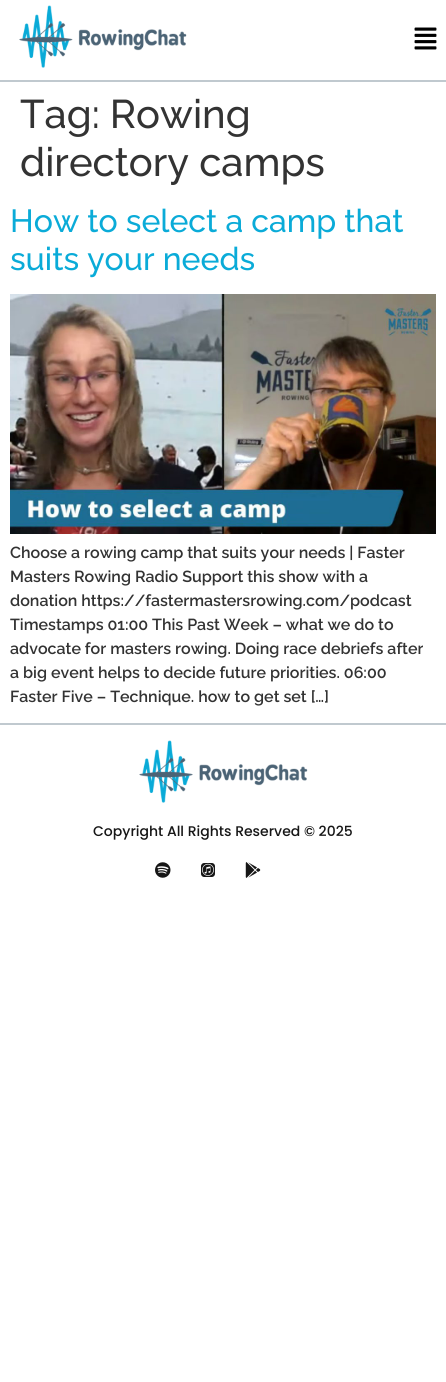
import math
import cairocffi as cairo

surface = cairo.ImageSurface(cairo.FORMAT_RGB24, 446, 1382)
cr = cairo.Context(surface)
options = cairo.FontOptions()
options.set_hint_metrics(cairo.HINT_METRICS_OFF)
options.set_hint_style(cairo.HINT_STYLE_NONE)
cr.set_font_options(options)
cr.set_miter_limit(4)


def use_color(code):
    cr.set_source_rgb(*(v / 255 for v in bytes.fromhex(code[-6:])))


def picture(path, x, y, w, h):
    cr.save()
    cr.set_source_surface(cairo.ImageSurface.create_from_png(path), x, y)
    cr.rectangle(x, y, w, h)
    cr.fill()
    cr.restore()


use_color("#ffffff")
cr.paint()
use_color("#c0c9cf")
cr.rectangle(0, 80, 446, 2)
cr.fill()
picture("img1.png", 19, 5, 168, 63)
picture("img2.png", 414, 27, 23, 23)
cr.select_font_face("Raleway Medium")
cr.set_font_size(40)
use_color("#333333")
cr.move_to(20, 128)
cr.show_text("Tag: Rowing")
cr.move_to(20, 176)
cr.show_text("directory camps")
cr.set_font_size(32)
use_color("#0aabd8")
cr.move_to(10, 232)
cr.show_text("How to select a camp that")
cr.move_to(10, 270)
cr.show_text("suits your needs")
picture("img3.png", 10, 294, 426, 240)
cr.select_font_face("Raleway SemiBold")
cr.set_font_size(16)
use_color("#333333")
cr.move_to(10, 558)
cr.show_text("Choose a rowing camp that suits your needs | Faster")
cr.move_to(10, 582)
cr.show_text("Masters Rowing Radio Support this show with a")
cr.move_to(10, 606)
cr.show_text("donation https://fastermastersrowing.com/podcast")
cr.move_to(10, 630)
cr.show_text("Timestamps 01:00 This Past Week – what we do to")
cr.move_to(10, 654)
cr.show_text("advocate for masters rowing. Doing race debriefs after")
cr.move_to(10, 678)
cr.show_text("a big event helps to decide future priorities. 06:00")
cr.move_to(10, 702)
cr.show_text("Faster Five – Technique. how to get set […]")
use_color("#c0c9cf")
cr.rectangle(0, 723, 446, 2)
cr.fill()
picture("img4.png", 139, 740, 169, 63)
cr.select_font_face("Poppins Medium")
cr.set_font_size(14)
use_color("#161616")
cr.move_to(93, 836)
cr.show_text("Copyright All Rights Reserved © 2025")
picture("img5.png", 155, 862, 16, 16)
picture("img6.png", 201, 863, 14, 14)
picture("img7.png", 245, 862, 16, 16)
surface.write_to_png("result.png")
